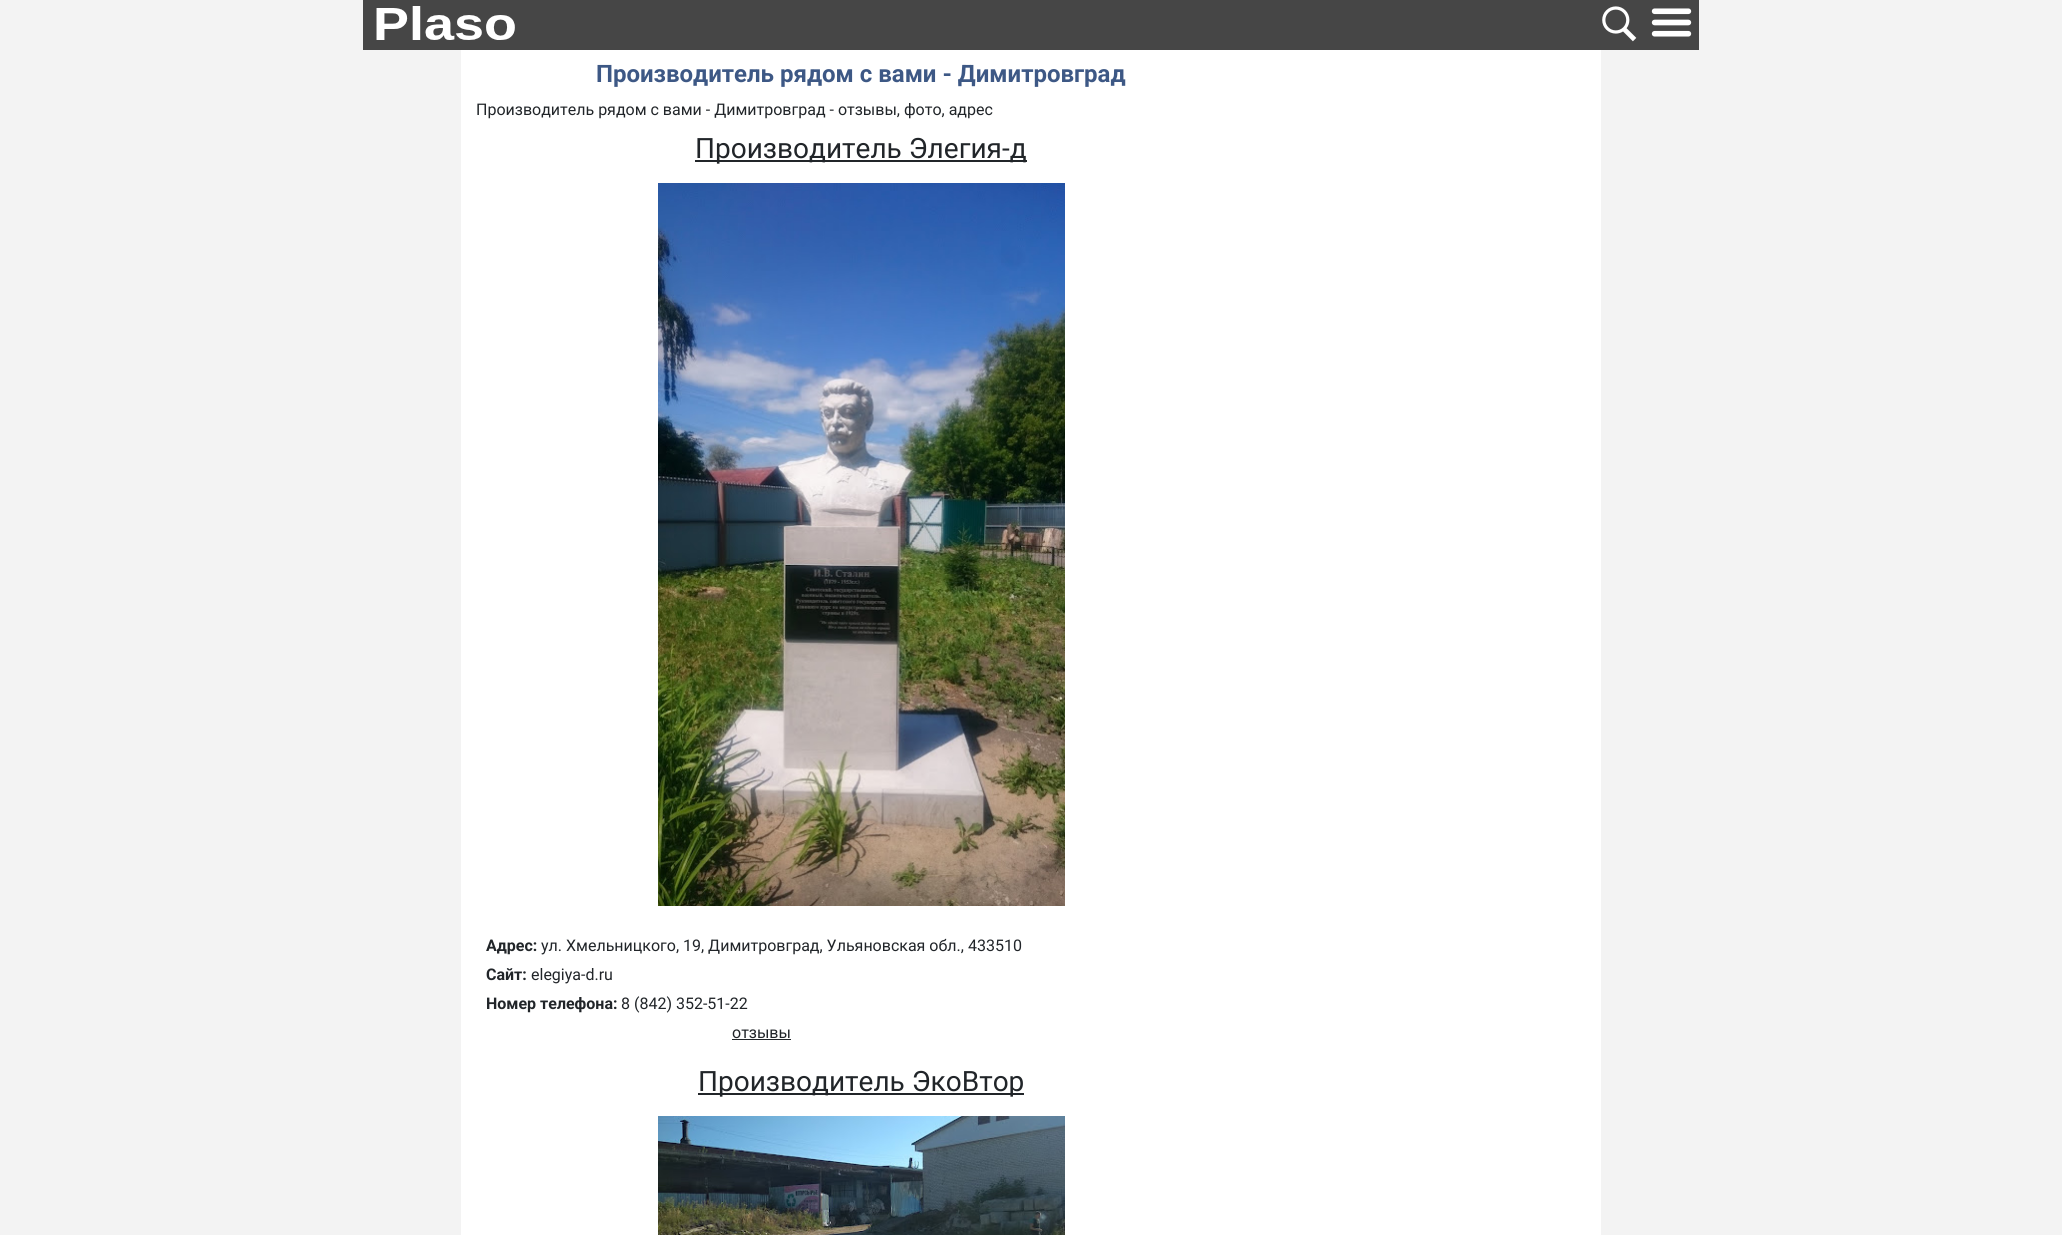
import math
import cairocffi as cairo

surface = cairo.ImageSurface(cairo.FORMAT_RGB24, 2062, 1235)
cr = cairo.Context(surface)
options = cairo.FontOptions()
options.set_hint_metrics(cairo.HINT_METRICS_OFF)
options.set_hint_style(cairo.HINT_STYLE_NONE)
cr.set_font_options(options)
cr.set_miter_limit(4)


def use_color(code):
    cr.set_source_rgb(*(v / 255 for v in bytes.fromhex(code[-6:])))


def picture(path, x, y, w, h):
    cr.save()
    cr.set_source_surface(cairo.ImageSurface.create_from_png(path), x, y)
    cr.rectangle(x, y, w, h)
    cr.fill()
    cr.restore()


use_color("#f3f3f3")
cr.paint()
use_color("#464646")
cr.rectangle(363, 0, 1336, 50)
cr.fill()
picture("img1.png", 376, 6, 139, 34)
picture("img2.png", 1602, 6, 35, 36)
picture("img3.png", 1651, 8, 41, 29)
use_color("#ffffff")
cr.rectangle(461, 50, 1140, 1185)
cr.fill()
cr.select_font_face("Roboto", cairo.FONT_SLANT_NORMAL, cairo.FONT_WEIGHT_BOLD)
cr.set_font_size(24)
use_color("#3d5885")
cr.move_to(596, 82)
cr.show_text("Производитель рядом с вами - Димитровград")
cr.select_font_face("Roboto")
cr.set_font_size(16)
use_color("#212529")
cr.move_to(476, 115)
cr.show_text("Производитель рядом с вами - Димитровград - отзывы, фото, адрес")
cr.rectangle(695, 160, 332, 2)
cr.fill()
cr.set_font_size(28)
cr.move_to(695, 158)
cr.show_text("Производитель Элегия-д")
picture("img4.png", 658, 183, 407, 723)
cr.select_font_face("Roboto", cairo.FONT_SLANT_NORMAL, cairo.FONT_WEIGHT_BOLD)
cr.set_font_size(16)
cr.move_to(486, 951)
cr.show_text("Адрес:")
cr.select_font_face("Roboto")
cr.move_to(541, 951)
cr.show_text("ул. Хмельницкого, 19, Димитровград, Ульяновская обл., 433510")
cr.select_font_face("Roboto", cairo.FONT_SLANT_NORMAL, cairo.FONT_WEIGHT_BOLD)
cr.move_to(486, 980)
cr.show_text("Сайт:")
cr.select_font_face("Roboto")
cr.move_to(531, 980)
cr.show_text("elegiya-d.ru")
cr.select_font_face("Roboto", cairo.FONT_SLANT_NORMAL, cairo.FONT_WEIGHT_BOLD)
cr.move_to(486, 1009)
cr.show_text("Номер телефона:")
cr.select_font_face("Roboto")
cr.move_to(621, 1009)
cr.show_text("8 (842) 352-51-22")
cr.move_to(732, 1038)
cr.show_text("отзывы")
cr.rectangle(732, 1039, 59, 1)
cr.fill()
cr.rectangle(698, 1093, 326, 2)
cr.fill()
cr.set_font_size(28)
cr.move_to(698, 1091)
cr.show_text("Производитель ЭкоВтор")
picture("img5.png", 658, 1116, 407, 119)
surface.write_to_png("result.png")
